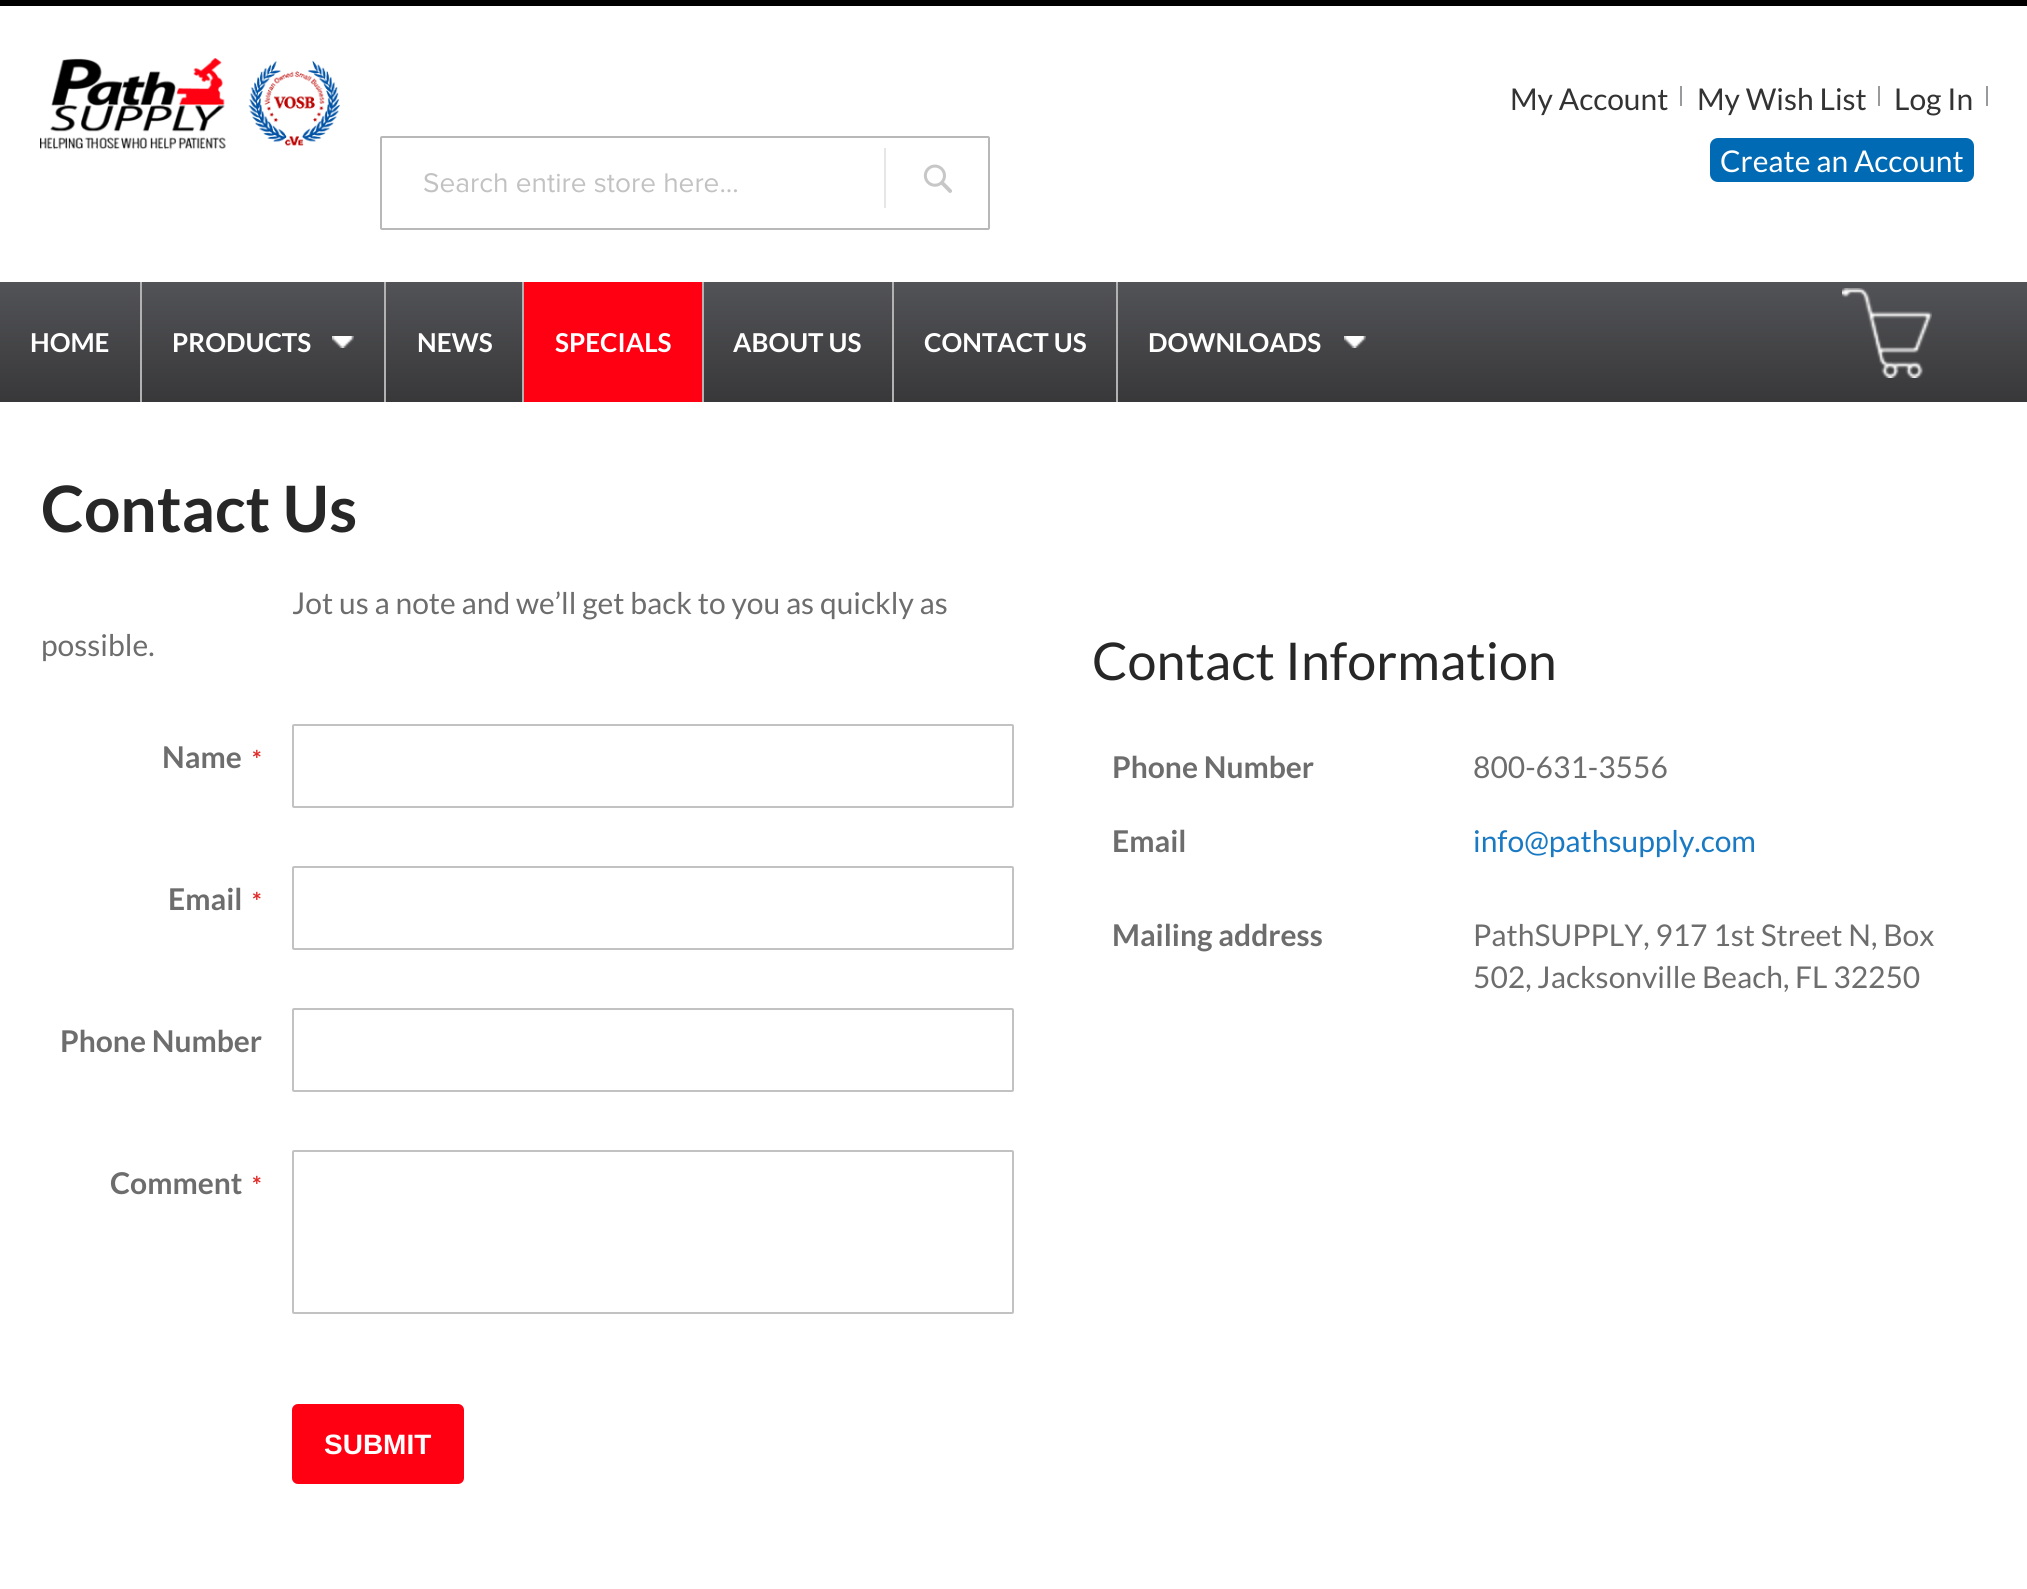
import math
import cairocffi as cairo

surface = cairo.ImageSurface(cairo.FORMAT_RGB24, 2027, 1589)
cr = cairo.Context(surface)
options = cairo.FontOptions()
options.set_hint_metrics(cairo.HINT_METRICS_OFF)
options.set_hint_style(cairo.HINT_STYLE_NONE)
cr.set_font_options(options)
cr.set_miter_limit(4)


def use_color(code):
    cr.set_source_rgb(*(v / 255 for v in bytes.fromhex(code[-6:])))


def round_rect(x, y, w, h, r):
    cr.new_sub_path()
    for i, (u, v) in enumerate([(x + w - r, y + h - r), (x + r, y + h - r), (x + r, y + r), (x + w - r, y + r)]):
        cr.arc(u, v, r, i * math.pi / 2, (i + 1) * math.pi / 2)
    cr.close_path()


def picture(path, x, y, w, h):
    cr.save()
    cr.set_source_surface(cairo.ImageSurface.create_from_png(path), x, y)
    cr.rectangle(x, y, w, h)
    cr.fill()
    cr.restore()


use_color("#ffffff")
cr.paint()
use_color("#000000")
cr.rectangle(0, 0, 2027, 6)
cr.fill()
picture("img1.png", 40, 58, 300, 92)
use_color("#999a9c")
cr.rectangle(1680, 86, 2, 20)
cr.fill()
cr.select_font_face("Lato")
cr.set_font_size(30)
use_color("#333334")
cr.move_to(1510, 110)
cr.show_text("My Account")
use_color("#999a9c")
cr.rectangle(1878, 86, 2, 20)
cr.fill()
use_color("#333334")
cr.move_to(1697, 110)
cr.show_text("My Wish List")
use_color("#999a9c")
cr.rectangle(1986, 86, 2, 20)
cr.fill()
use_color("#333334")
cr.move_to(1894, 110)
cr.show_text("Log In")
use_color("#006bb4")
round_rect(1710, 138, 264, 44, 8)
cr.fill()
use_color("#ffffff")
cr.move_to(1720, 172)
cr.show_text("Create an Account")
round_rect(381, 137, 608, 92, 1)
use_color("#b8b8b8")
cr.stroke()
cr.select_font_face("Proxima Nova")
cr.set_font_size(28)
use_color("#c2c2c2")
cr.move_to(423, 192)
cr.show_text("Search entire store here...")
use_color("#e6e6e6")
cr.rectangle(884, 148, 2, 60)
cr.fill()
picture("img2.png", 923, 164, 29, 29)
gradient = cairo.LinearGradient(1014, 282, 1014, 402)
gradient.add_color_stop_rgba(0, 0.322, 0.325, 0.341, 1)
gradient.add_color_stop_rgba(1, 0.22, 0.22, 0.227, 1)
cr.set_source(gradient)
cr.rectangle(0, 282, 2027, 120)
cr.fill()
picture("img3.png", 1842, 288, 90, 90)
use_color("#b2b2b3")
cr.rectangle(140, 282, 2, 120)
cr.fill()
cr.select_font_face("Lato", cairo.FONT_SLANT_NORMAL, cairo.FONT_WEIGHT_BOLD)
cr.set_font_size(26)
use_color("#ffffff")
cr.move_to(30, 352)
cr.show_text("HOME")
use_color("#b2b2b3")
cr.rectangle(384, 282, 2, 120)
cr.fill()
use_color("#ffffff")
cr.move_to(172, 352)
cr.show_text("PRODUCTS")
picture("img4.png", 332, 336, 22, 12)
use_color("#b2b2b3")
cr.rectangle(522, 282, 2, 120)
cr.fill()
use_color("#ffffff")
cr.move_to(417, 352)
cr.show_text("NEWS")
use_color("#b2b2b3")
cr.rectangle(702, 282, 2, 120)
cr.fill()
use_color("#ff0013")
cr.rectangle(524, 282, 178, 120)
cr.fill()
use_color("#ffffff")
cr.move_to(555, 352)
cr.show_text("SPECIALS")
use_color("#b2b2b3")
cr.rectangle(892, 282, 2, 120)
cr.fill()
use_color("#ffffff")
cr.move_to(733, 352)
cr.show_text("ABOUT US")
use_color("#b2b2b3")
cr.rectangle(1116, 282, 2, 120)
cr.fill()
use_color("#ffffff")
cr.move_to(924, 352)
cr.show_text("CONTACT US")
cr.move_to(1148, 352)
cr.show_text("DOWNLOADS")
picture("img4.png", 1344, 336, 22, 12)
cr.set_font_size(64)
use_color("#282727")
cr.move_to(41, 532)
cr.show_text("Contact Us")
cr.select_font_face("Lato")
cr.set_font_size(30)
use_color("#6d6d6d")
cr.move_to(292, 614)
cr.show_text("Jot us a note and we’ll get back to you as quickly as")
cr.move_to(41, 656)
cr.show_text("possible.")
cr.select_font_face("Lato", cairo.FONT_SLANT_NORMAL, cairo.FONT_WEIGHT_BOLD)
cr.move_to(162, 768)
cr.show_text("Name")
cr.set_font_size(24)
use_color("#e02b27")
cr.move_to(252, 768)
cr.show_text("*")
round_rect(293, 725, 720, 82, 1)
use_color("#c2c2c2")
cr.stroke()
cr.set_font_size(30)
use_color("#6d6d6d")
cr.move_to(168, 910)
cr.show_text("Email")
cr.set_font_size(24)
use_color("#e02b27")
cr.move_to(252, 910)
cr.show_text("*")
round_rect(293, 867, 720, 82, 1)
use_color("#c2c2c2")
cr.stroke()
cr.set_font_size(30)
use_color("#6d6d6d")
cr.move_to(60, 1052)
cr.show_text("Phone Number")
round_rect(293, 1009, 720, 82, 1)
use_color("#c2c2c2")
cr.stroke()
use_color("#6d6d6d")
cr.move_to(110, 1194)
cr.show_text("Comment")
cr.set_font_size(24)
use_color("#e02b27")
cr.move_to(252, 1194)
cr.show_text("*")
round_rect(293, 1151, 720, 162, 1)
use_color("#c2c2c2")
cr.stroke()
use_color("#ff0013")
round_rect(293, 1405, 170, 78, 5)
cr.fill_preserve()
cr.stroke()
cr.select_font_face("Liberation Sans", cairo.FONT_SLANT_NORMAL, cairo.FONT_WEIGHT_BOLD)
cr.set_font_size(28)
use_color("#ffffff")
cr.move_to(324, 1454)
cr.show_text("SUBMIT")
cr.select_font_face("Lato")
cr.set_font_size(52)
use_color("#282727")
cr.move_to(1092, 680)
cr.show_text("Contact Information")
cr.select_font_face("Lato", cairo.FONT_SLANT_NORMAL, cairo.FONT_WEIGHT_BOLD)
cr.set_font_size(30)
use_color("#6d6d6d")
cr.move_to(1112, 778)
cr.show_text("Phone Number")
cr.select_font_face("Lato")
cr.move_to(1473, 778)
cr.show_text("800-631-3556")
cr.select_font_face("Lato", cairo.FONT_SLANT_NORMAL, cairo.FONT_WEIGHT_BOLD)
cr.move_to(1112, 852)
cr.show_text("Email")
cr.select_font_face("Lato")
use_color("#1979c3")
cr.move_to(1473, 852)
cr.show_text("info@pathsupply.com")
cr.select_font_face("Lato", cairo.FONT_SLANT_NORMAL, cairo.FONT_WEIGHT_BOLD)
use_color("#6d6d6d")
cr.move_to(1112, 946)
cr.show_text("Mailing address")
cr.select_font_face("Lato")
cr.move_to(1473, 946)
cr.show_text("PathSUPPLY, 917 1st Street N, Box")
cr.move_to(1473, 988)
cr.show_text("502, Jacksonville Beach, FL 32250")
surface.write_to_png("result.png")
